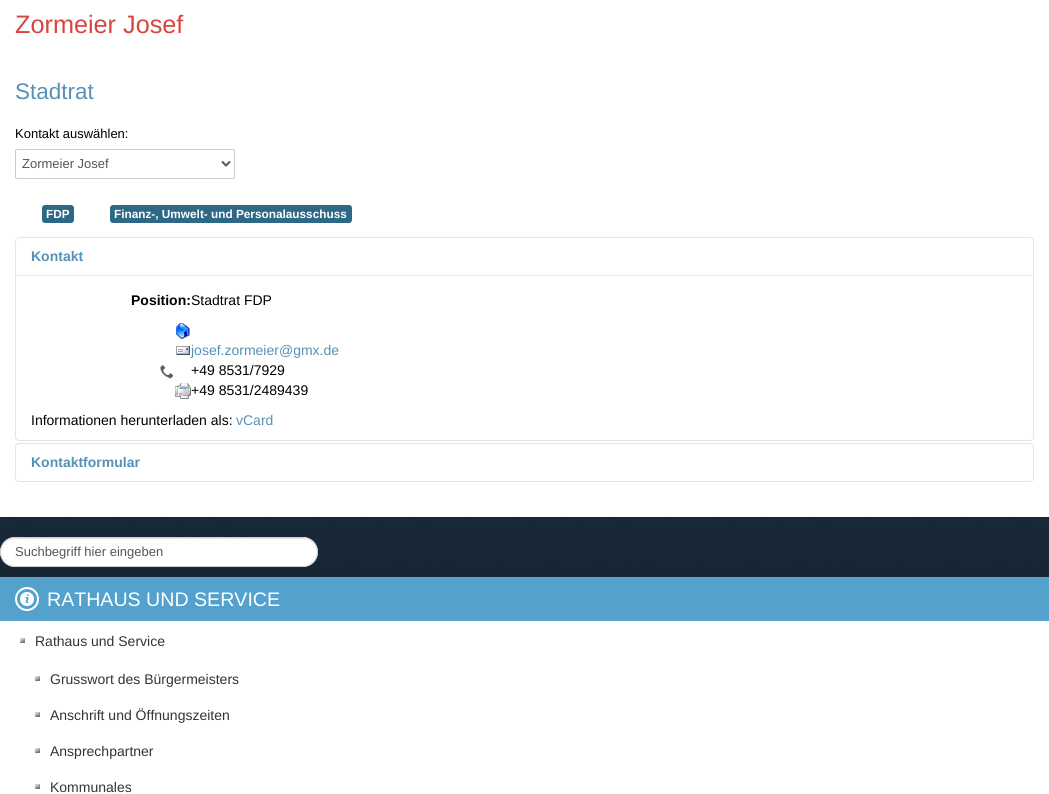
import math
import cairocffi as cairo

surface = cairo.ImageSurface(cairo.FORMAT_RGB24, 1049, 794)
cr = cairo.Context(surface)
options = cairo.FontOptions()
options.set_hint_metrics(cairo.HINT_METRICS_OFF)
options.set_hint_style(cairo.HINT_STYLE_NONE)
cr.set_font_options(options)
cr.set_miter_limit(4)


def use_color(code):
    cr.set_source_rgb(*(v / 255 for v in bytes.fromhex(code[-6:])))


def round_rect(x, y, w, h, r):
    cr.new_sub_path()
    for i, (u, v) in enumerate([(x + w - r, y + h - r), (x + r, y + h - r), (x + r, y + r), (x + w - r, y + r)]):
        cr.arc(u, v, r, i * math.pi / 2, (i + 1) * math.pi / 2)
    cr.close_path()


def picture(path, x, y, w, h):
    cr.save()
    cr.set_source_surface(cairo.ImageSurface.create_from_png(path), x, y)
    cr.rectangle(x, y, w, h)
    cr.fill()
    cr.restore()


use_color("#ffffff")
cr.paint()
picture("img1.png", 0, 517, 1049, 60)
cr.set_source_rgba(0, 0, 0, 0.1)
cr.rectangle(0, 517, 1049, 1)
cr.fill()
cr.select_font_face("Liberation Sans")
cr.set_font_size(25.25)
use_color("#d6463f")
cr.move_to(15, 33)
cr.show_text("Zormeier Josef")
cr.set_font_size(22.5)
use_color("#5691b6")
cr.move_to(15, 99)
cr.show_text("Stadtrat")
cr.set_font_size(13)
use_color("#000000")
cr.move_to(15, 138)
cr.show_text("Kontakt auswählen:")
round_rect(15.5, 149.5, 219, 29, 1.5)
use_color("#cccccc")
cr.set_line_width(1)
cr.stroke()
cr.new_path()
cr.move_to(222, 161.5)
cr.line_to(226, 165.5)
cr.line_to(230, 161.5)
use_color("#555555")
cr.set_line_width(2)
cr.stroke()
cr.move_to(22, 168)
cr.show_text("Zormeier Josef")
use_color("#2d6987")
round_rect(42, 205, 32, 18, 3)
cr.fill()
cr.select_font_face("Liberation Sans", cairo.FONT_SLANT_NORMAL, cairo.FONT_WEIGHT_BOLD)
cr.set_font_size(11.8)
use_color("#ffffff")
cr.move_to(46, 218)
cr.show_text("FDP")
use_color("#2d6987")
round_rect(110, 205, 242, 18, 3)
cr.fill()
use_color("#ffffff")
cr.move_to(114, 218)
cr.show_text("Finanz-, Umwelt- und Personalausschuss")
round_rect(15.5, 237.5, 1018, 203, 3.5)
use_color("#e5e5e5")
cr.set_line_width(1)
cr.stroke()
cr.set_font_size(14)
use_color("#5691b6")
cr.move_to(31, 261)
cr.show_text("Kontakt")
use_color("#e5e5e5")
cr.rectangle(16, 275, 1017, 1)
cr.fill()
use_color("#000000")
cr.move_to(131, 305)
cr.show_text("Position:")
cr.select_font_face("Liberation Sans")
cr.move_to(191, 305)
cr.show_text("Stadtrat FDP")
picture("img2.png", 176, 323, 14, 16)
picture("img3.png", 176, 346, 14, 9)
use_color("#5691b6")
cr.move_to(191, 355)
cr.show_text("josef.zormeier@gmx.de")
picture("img4.png", 160, 365, 14, 14)
use_color("#000000")
cr.move_to(191, 375)
cr.show_text("+49 8531/7929")
picture("img5.png", 175, 383, 16, 16)
cr.move_to(191, 395)
cr.show_text("+49 8531/2489439")
cr.move_to(31, 425)
cr.show_text("Informationen herunterladen als:")
use_color("#5691b6")
cr.move_to(236, 425)
cr.show_text("vCard")
round_rect(15.5, 443.5, 1018, 38, 3.5)
use_color("#e5e5e5")
cr.stroke()
cr.select_font_face("Liberation Sans", cairo.FONT_SLANT_NORMAL, cairo.FONT_WEIGHT_BOLD)
use_color("#5691b6")
cr.move_to(31, 467)
cr.show_text("Kontaktformular")
use_color("#ffffff")
round_rect(0, 537, 318, 30, 15)
cr.fill()
use_color("#ececec")
cr.new_path()
cr.move_to(15, 539)
cr.line_to(303, 539)
cr.curve_to(311, 539, 317, 545, 317, 552)
cr.curve_to(317, 545, 311, 538, 303, 538)
cr.line_to(15, 538)
cr.curve_to(7, 538, 1, 545, 1, 552)
cr.curve_to(1, 545, 7, 539, 15, 539)
cr.close_path()
cr.fill()
round_rect(0.5, 537.5, 317, 29, 14.5)
use_color("#cccccc")
cr.stroke()
cr.select_font_face("Liberation Sans")
cr.set_font_size(13)
use_color("#555555")
cr.move_to(15, 556)
cr.show_text("Suchbegriff hier eingeben")
use_color("#54a1cd")
cr.rectangle(0, 577, 1049, 44)
cr.fill()
picture("img6.png", 15, 587, 24, 24)
cr.set_font_size(19.6)
use_color("#ffffff")
cr.move_to(47, 606)
cr.show_text("RATHAUS UND SERVICE")
picture("img7.png", 20, 638, 5, 5)
cr.set_font_size(14)
use_color("#333333")
cr.move_to(35, 646)
cr.show_text("Rathaus und Service")
picture("img7.png", 35, 676, 5, 5)
cr.move_to(50, 684)
cr.show_text("Grusswort des Bürgermeisters")
picture("img7.png", 35, 712, 5, 5)
cr.move_to(50, 720)
cr.show_text("Anschrift und Öffnungszeiten")
picture("img7.png", 35, 748, 5, 5)
cr.move_to(50, 756)
cr.show_text("Ansprechpartner")
picture("img7.png", 35, 784, 5, 5)
cr.move_to(50, 792)
cr.show_text("Kommunales")
surface.write_to_png("result.png")
